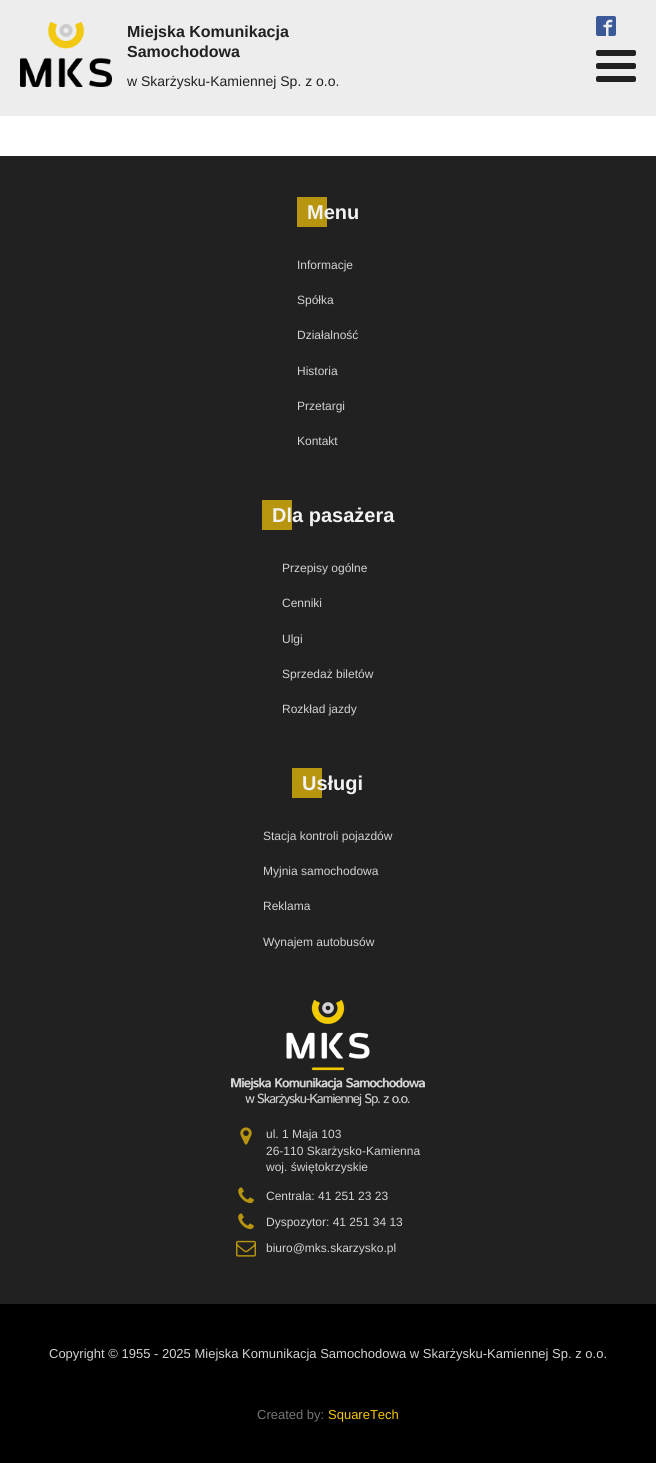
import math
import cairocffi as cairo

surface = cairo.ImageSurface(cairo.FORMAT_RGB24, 656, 1463)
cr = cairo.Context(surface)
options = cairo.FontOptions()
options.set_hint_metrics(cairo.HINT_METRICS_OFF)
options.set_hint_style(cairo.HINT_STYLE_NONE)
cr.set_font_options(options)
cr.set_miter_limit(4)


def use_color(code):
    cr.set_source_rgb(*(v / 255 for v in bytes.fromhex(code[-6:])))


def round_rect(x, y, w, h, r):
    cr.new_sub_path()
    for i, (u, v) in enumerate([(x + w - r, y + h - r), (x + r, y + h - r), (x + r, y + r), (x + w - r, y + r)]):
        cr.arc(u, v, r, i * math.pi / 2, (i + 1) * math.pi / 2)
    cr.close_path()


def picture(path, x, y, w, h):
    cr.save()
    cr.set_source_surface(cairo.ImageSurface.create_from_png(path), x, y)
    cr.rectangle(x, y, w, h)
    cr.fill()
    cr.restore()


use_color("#ffffff")
cr.paint()
use_color("#ededed")
cr.rectangle(0, 0, 656, 116)
cr.fill()
picture("img1.png", 20, 22, 92, 65)
cr.select_font_face("Liberation Sans", cairo.FONT_SLANT_NORMAL, cairo.FONT_WEIGHT_BOLD)
cr.set_font_size(16)
use_color("#212121")
cr.move_to(127, 37)
cr.show_text("Miejska Komunikacja")
cr.move_to(127, 57)
cr.show_text("Samochodowa")
cr.select_font_face("Liberation Sans")
cr.set_font_size(14)
cr.move_to(127, 86)
cr.show_text("w Skarżysku-Kamiennej Sp. z o.o.")
picture("img2.png", 596, 16, 20, 20)
round_rect(596, 50, 40, 6, 2)
cr.fill()
round_rect(596, 63, 40, 6, 2)
cr.fill()
round_rect(596, 76, 40, 6, 2)
cr.fill()
cr.rectangle(0, 156, 656, 1148)
cr.fill()
use_color("#b8950f")
cr.rectangle(297, 197, 30, 30)
cr.fill()
cr.select_font_face("Liberation Sans", cairo.FONT_SLANT_NORMAL, cairo.FONT_WEIGHT_BOLD)
cr.set_font_size(20)
use_color("#f2f2f2")
cr.move_to(307, 219)
cr.show_text("Menu")
cr.select_font_face("Liberation Sans")
cr.set_font_size(12)
use_color("#d2d2d2")
cr.move_to(297, 269)
cr.show_text("Informacje")
cr.move_to(297, 304)
cr.show_text("Spółka")
cr.move_to(297, 339)
cr.show_text("Działalność")
cr.move_to(297, 375)
cr.show_text("Historia")
cr.move_to(297, 410)
cr.show_text("Przetargi")
cr.move_to(297, 445)
cr.show_text("Kontakt")
use_color("#b8950f")
cr.rectangle(262, 500, 30, 30)
cr.fill()
cr.select_font_face("Liberation Sans", cairo.FONT_SLANT_NORMAL, cairo.FONT_WEIGHT_BOLD)
cr.set_font_size(20)
use_color("#f2f2f2")
cr.move_to(272, 522)
cr.show_text("Dla pasażera")
cr.select_font_face("Liberation Sans")
cr.set_font_size(12)
use_color("#d2d2d2")
cr.move_to(282, 572)
cr.show_text("Przepisy ogólne")
cr.move_to(282, 607)
cr.show_text("Cenniki")
cr.move_to(282, 643)
cr.show_text("Ulgi")
cr.move_to(282, 678)
cr.show_text("Sprzedaż biletów")
cr.move_to(282, 713)
cr.show_text("Rozkład jazdy")
use_color("#b8950f")
cr.rectangle(292, 768, 30, 30)
cr.fill()
cr.select_font_face("Liberation Sans", cairo.FONT_SLANT_NORMAL, cairo.FONT_WEIGHT_BOLD)
cr.set_font_size(20)
use_color("#f2f2f2")
cr.move_to(302, 790)
cr.show_text("Usługi")
cr.select_font_face("Liberation Sans")
cr.set_font_size(12)
use_color("#d2d2d2")
cr.move_to(263, 840)
cr.show_text("Stacja kontroli pojazdów")
cr.move_to(263, 875)
cr.show_text("Myjnia samochodowa")
cr.move_to(263, 910)
cr.show_text("Reklama")
cr.move_to(263, 946)
cr.show_text("Wynajem autobusów")
picture("img3.png", 231, 1000, 194, 106)
picture("img4.png", 240, 1127, 12, 18)
cr.move_to(266, 1138)
cr.show_text("ul. 1 Maja 103")
cr.move_to(266, 1155)
cr.show_text("26-110 Skarżysko-Kamienna")
cr.move_to(266, 1171)
cr.show_text("woj. świętokrzyskie")
picture("img5.png", 238, 1187, 16, 17)
cr.move_to(266, 1200)
cr.show_text("Centrala: 41 251 23 23")
picture("img5.png", 238, 1213, 16, 17)
cr.move_to(266, 1226)
cr.show_text("Dyspozytor: 41 251 34 13")
picture("img6.png", 236, 1240, 20, 17)
cr.move_to(266, 1252)
cr.show_text("biuro@mks.skarzysko.pl")
use_color("#000000")
cr.rectangle(0, 1304, 656, 159)
cr.fill()
cr.set_font_size(13)
use_color("#d2d2d2")
cr.move_to(49, 1358)
cr.show_text("Copyright © 1955 - 2025 Miejska Komunikacja Samochodowa w Skarżysku-Kamiennej Sp. z o.o.")
use_color("#757575")
cr.move_to(257, 1419)
cr.show_text("Created by:")
use_color("#f8c607")
cr.move_to(328, 1419)
cr.show_text("SquareTech")
surface.write_to_png("result.png")
